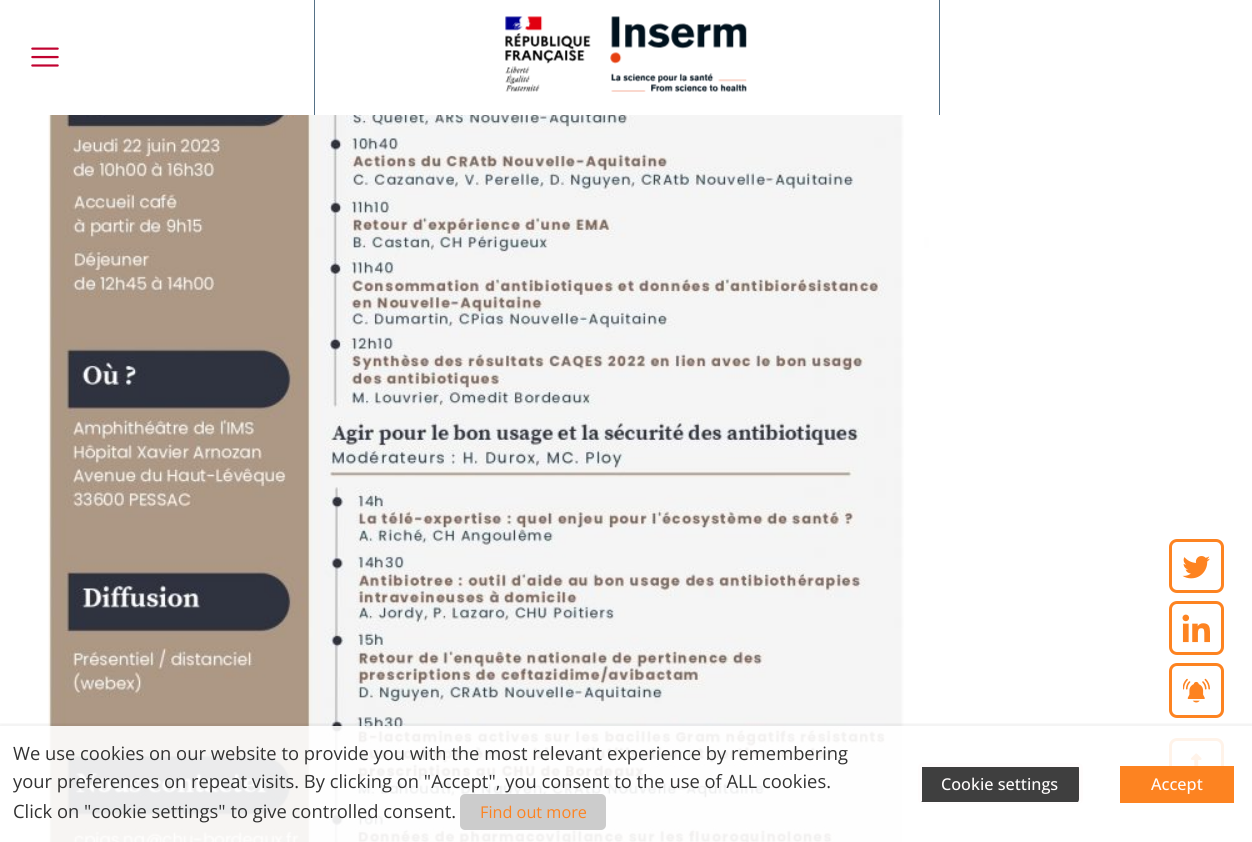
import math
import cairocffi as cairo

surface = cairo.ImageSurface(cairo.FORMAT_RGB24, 1252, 842)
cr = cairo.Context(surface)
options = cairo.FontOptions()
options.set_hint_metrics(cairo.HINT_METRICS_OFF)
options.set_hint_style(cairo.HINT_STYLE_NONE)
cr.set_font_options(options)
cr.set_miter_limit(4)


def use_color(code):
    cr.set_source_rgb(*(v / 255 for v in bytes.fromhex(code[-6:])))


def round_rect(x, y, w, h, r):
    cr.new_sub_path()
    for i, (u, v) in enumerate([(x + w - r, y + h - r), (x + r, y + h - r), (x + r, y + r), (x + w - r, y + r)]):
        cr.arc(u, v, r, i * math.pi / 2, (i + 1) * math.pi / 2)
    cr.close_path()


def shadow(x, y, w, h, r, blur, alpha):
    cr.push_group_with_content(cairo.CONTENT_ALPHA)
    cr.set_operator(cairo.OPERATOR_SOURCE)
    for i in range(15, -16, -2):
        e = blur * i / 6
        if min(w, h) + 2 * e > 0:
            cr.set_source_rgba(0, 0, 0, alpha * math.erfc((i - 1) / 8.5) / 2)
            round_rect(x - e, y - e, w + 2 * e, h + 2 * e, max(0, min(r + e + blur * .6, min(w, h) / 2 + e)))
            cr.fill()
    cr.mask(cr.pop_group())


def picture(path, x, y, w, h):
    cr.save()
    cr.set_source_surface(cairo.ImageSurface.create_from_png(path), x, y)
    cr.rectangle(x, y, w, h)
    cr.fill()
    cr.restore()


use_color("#ffffff")
cr.paint()
use_color("#557187")
cr.rectangle(939, 0, 1, 115)
cr.fill()
cr.rectangle(314, 0, 1, 115)
cr.fill()
picture("img1.png", 505, 16, 242, 76)
picture("img2.png", 31, 47, 28, 20)
round_rect(1170.5, 540.5, 52, 51, 6.5)
use_color("#fd8321")
cr.set_line_width(3)
cr.stroke()
picture("img3.png", 1182, 556, 28, 23)
round_rect(1170.5, 602.5, 52, 51, 6.5)
cr.stroke()
picture("img4.png", 1182, 614, 28, 29)
round_rect(1170.5, 664.5, 52, 52, 6.5)
cr.stroke()
picture("img5.png", 1183, 678, 27, 25)
round_rect(1170.5, 739.5, 52, 52, 6.5)
cr.stroke()
picture("img6.png", 1190, 753, 12, 13)
picture("img7.png", 48, 115, 882, 727)
cr.save()
cr.rectangle(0, 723, 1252, 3)
cr.clip()
use_color("#000000")
shadow(0, 733, 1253, 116, 0, 6, 0.5)
cr.restore()
cr.set_source_rgba(1, 1, 1, 0.9)
cr.rectangle(2, 726, 1249, 116)
cr.fill()
cr.select_font_face("Open Sans")
cr.set_font_size(18.35)
use_color("#333333")
cr.move_to(13, 760)
cr.show_text("We use cookies on our website to provide you with the most relevant experience by remembering")
cr.move_to(13, 788)
cr.show_text("your preferences on repeat visits. By clicking on \"Accept\", you consent to the use of ALL cookies.")
cr.move_to(13, 818)
cr.show_text("Click on \"cookie settings\" to give controlled consent.")
use_color("#cccccc")
round_rect(460, 794, 146, 36, 5)
cr.fill()
cr.set_font_size(16.25)
use_color("#fd8321")
cr.move_to(480, 818)
cr.show_text("Find out more")
use_color("#3f3f3f")
cr.new_path()
cr.move_to(922, 766)
cr.line_to(1078, 766)
cr.curve_to(1078, 766, 1079, 767, 1079, 768)
cr.line_to(1079, 799)
cr.curve_to(1079, 801, 1078, 802, 1078, 802)
cr.line_to(922, 802)
cr.curve_to(922, 802, 921, 801, 921, 799)
cr.line_to(921, 768)
cr.curve_to(921, 767, 922, 766, 922, 766)
cr.close_path()
cr.fill()
round_rect(918.5, 763.5, 164, 40, 4.5)
use_color("#fffcfc")
cr.set_line_width(1)
cr.stroke()
cr.rectangle(920, 764, 160, 3)
cr.fill()
cr.rectangle(1079, 765, 3, 36)
cr.fill()
cr.rectangle(919, 765, 3, 36)
cr.fill()
cr.select_font_face("Open Sans Medium")
cr.move_to(941, 790)
cr.show_text("Cookie settings")
use_color("#fd8321")
cr.rectangle(1120, 766, 114, 37)
cr.fill()
use_color("#fffcfc")
cr.move_to(1151, 790)
cr.show_text("Accept")
surface.write_to_png("result.png")
